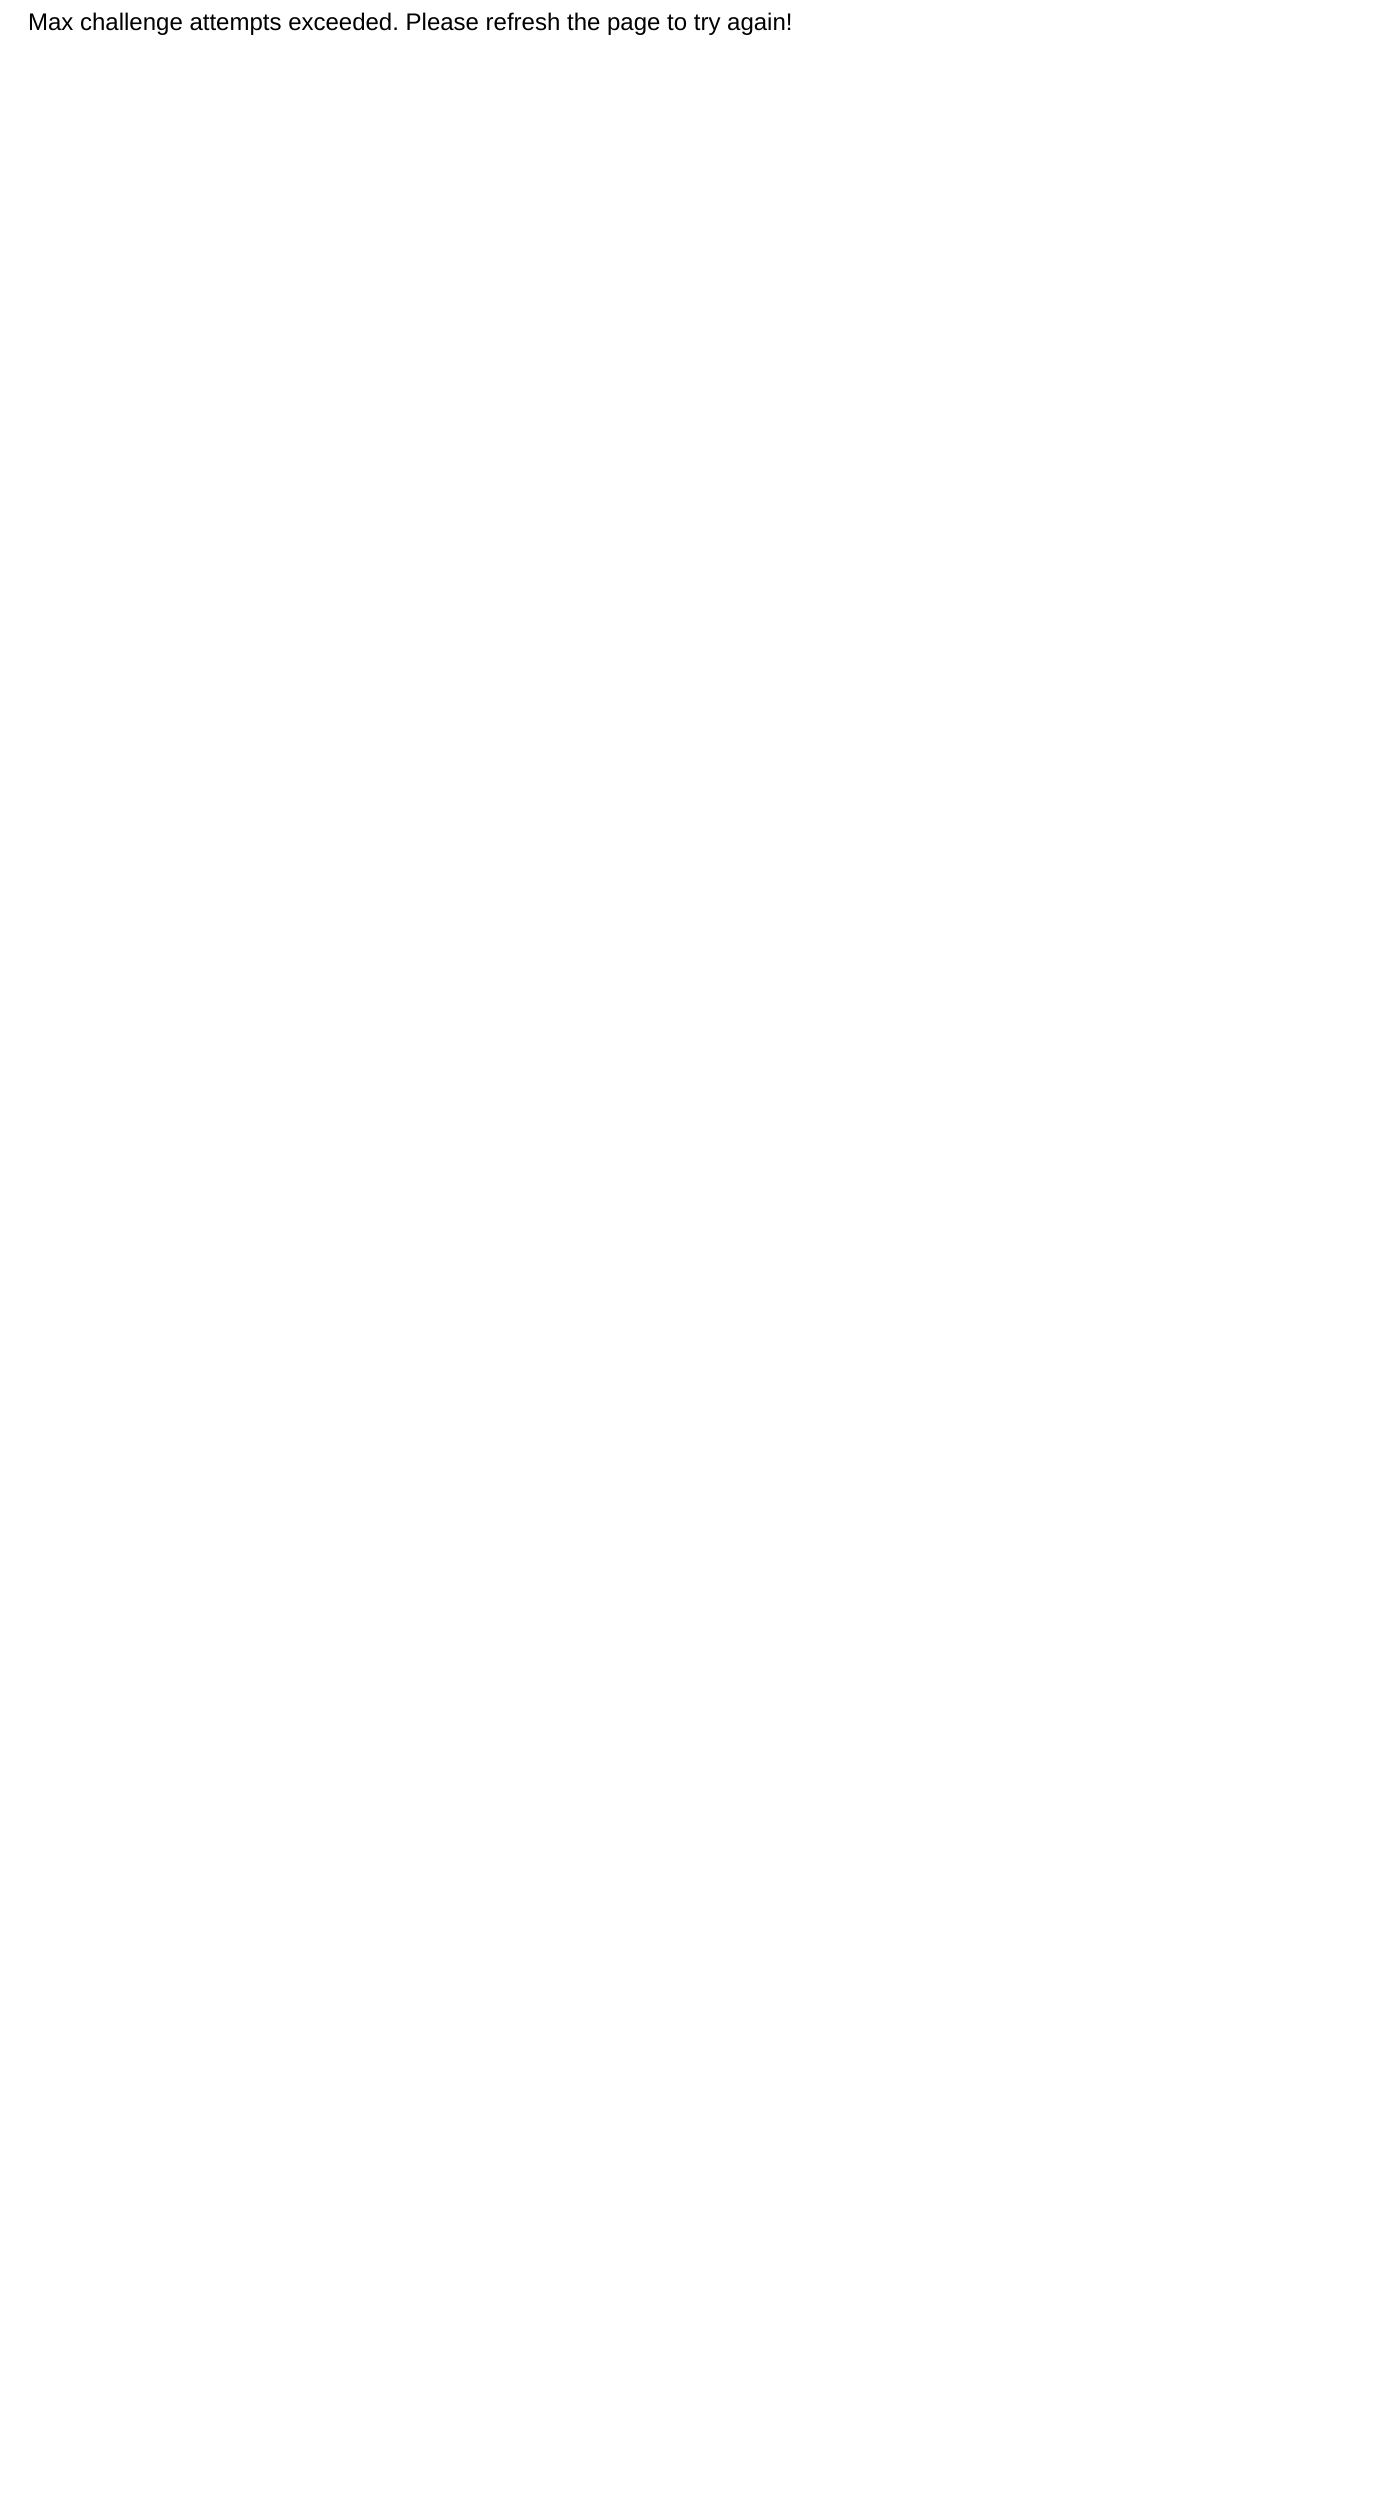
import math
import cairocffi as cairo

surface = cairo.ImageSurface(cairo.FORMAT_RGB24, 1390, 2500)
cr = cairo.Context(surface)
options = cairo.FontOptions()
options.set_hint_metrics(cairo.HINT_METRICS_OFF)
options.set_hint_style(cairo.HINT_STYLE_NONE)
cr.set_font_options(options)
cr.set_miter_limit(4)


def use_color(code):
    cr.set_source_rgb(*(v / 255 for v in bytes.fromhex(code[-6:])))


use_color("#ffffff")
cr.paint()
cr.select_font_face("Liberation Sans")
cr.set_font_size(24)
use_color("#000000")
cr.move_to(28, 30)
cr.show_text("Max challenge attempts exceeded. Please refresh the page to try again!")
surface.write_to_png("result.png")
